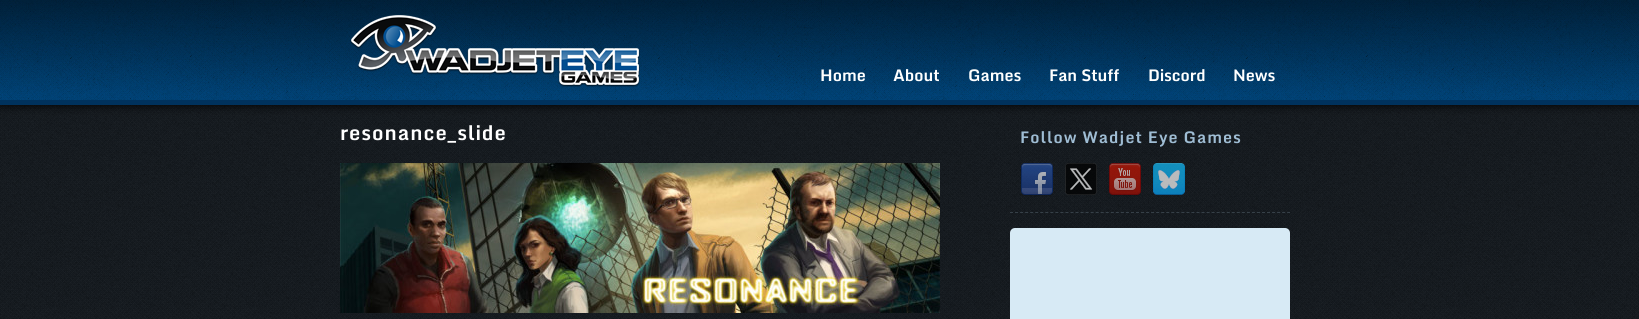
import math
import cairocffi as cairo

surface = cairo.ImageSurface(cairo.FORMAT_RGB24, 1639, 319)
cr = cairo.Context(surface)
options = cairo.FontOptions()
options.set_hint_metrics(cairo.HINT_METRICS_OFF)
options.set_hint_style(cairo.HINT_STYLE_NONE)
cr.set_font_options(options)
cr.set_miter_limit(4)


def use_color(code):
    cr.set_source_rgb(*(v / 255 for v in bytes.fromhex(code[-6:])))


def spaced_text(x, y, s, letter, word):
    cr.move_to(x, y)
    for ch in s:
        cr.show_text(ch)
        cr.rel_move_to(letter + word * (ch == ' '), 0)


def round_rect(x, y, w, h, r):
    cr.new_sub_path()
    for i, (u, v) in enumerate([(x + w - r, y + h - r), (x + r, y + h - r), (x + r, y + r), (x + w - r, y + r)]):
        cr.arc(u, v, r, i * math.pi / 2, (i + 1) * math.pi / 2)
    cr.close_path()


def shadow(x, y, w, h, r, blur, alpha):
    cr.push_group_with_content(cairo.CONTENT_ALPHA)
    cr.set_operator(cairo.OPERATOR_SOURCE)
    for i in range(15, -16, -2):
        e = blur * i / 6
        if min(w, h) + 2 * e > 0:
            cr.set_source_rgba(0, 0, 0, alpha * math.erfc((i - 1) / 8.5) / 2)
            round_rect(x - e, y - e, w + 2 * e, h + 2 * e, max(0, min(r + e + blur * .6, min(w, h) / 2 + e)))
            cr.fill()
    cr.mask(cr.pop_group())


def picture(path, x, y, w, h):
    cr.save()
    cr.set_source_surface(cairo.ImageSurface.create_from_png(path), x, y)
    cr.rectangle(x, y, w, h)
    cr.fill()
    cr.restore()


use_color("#ffffff")
cr.paint()
picture("img3.png", 0, 105, 1639, 214)
use_color("#000000")
shadow(0, 0, 1639, 105, 0, 5, 1)
picture("img1.png", 0, 0, 1639, 100)
use_color("#00325d")
cr.rectangle(0, 100, 1639, 5)
cr.fill()
picture("img2.png", 350, 15, 290, 72)
cr.select_font_face("Monda", cairo.FONT_SLANT_NORMAL, cairo.FONT_WEIGHT_BOLD)
cr.set_font_size(16)
use_color("#ffffff")
cr.move_to(820, 81)
cr.show_text("Home")
cr.move_to(893, 81)
cr.show_text("About")
cr.move_to(968, 81)
cr.show_text("Games")
cr.move_to(1049, 81)
cr.show_text("Fan Stuff")
cr.move_to(1148, 81)
cr.show_text("Discord")
cr.move_to(1233, 81)
cr.show_text("News")
cr.set_font_size(20)
spaced_text(340, 140, "resonance_slide", 1, 0)
picture("img4.png", 340, 163, 600, 150)
cr.new_path()
cr.move_to(1010, 212.5)
cr.line_to(1290, 212.5)
use_color("#364048")
cr.set_line_width(1)
cr.set_dash([3, 2.04])
cr.stroke()
cr.set_font_size(16)
use_color("#9fbdd4")
spaced_text(1020, 143, "Follow Wadjet Eye Games", 1, 0)
picture("img5.png", 1021, 163, 32, 33)
picture("img6.png", 1065, 163, 32, 32)
picture("img7.png", 1109, 163, 32, 33)
picture("img8.png", 1153, 163, 32, 32)
use_color("#d7eaf5")
round_rect(1010, 228, 280, 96, 5)
cr.fill()
surface.write_to_png("result.png")
